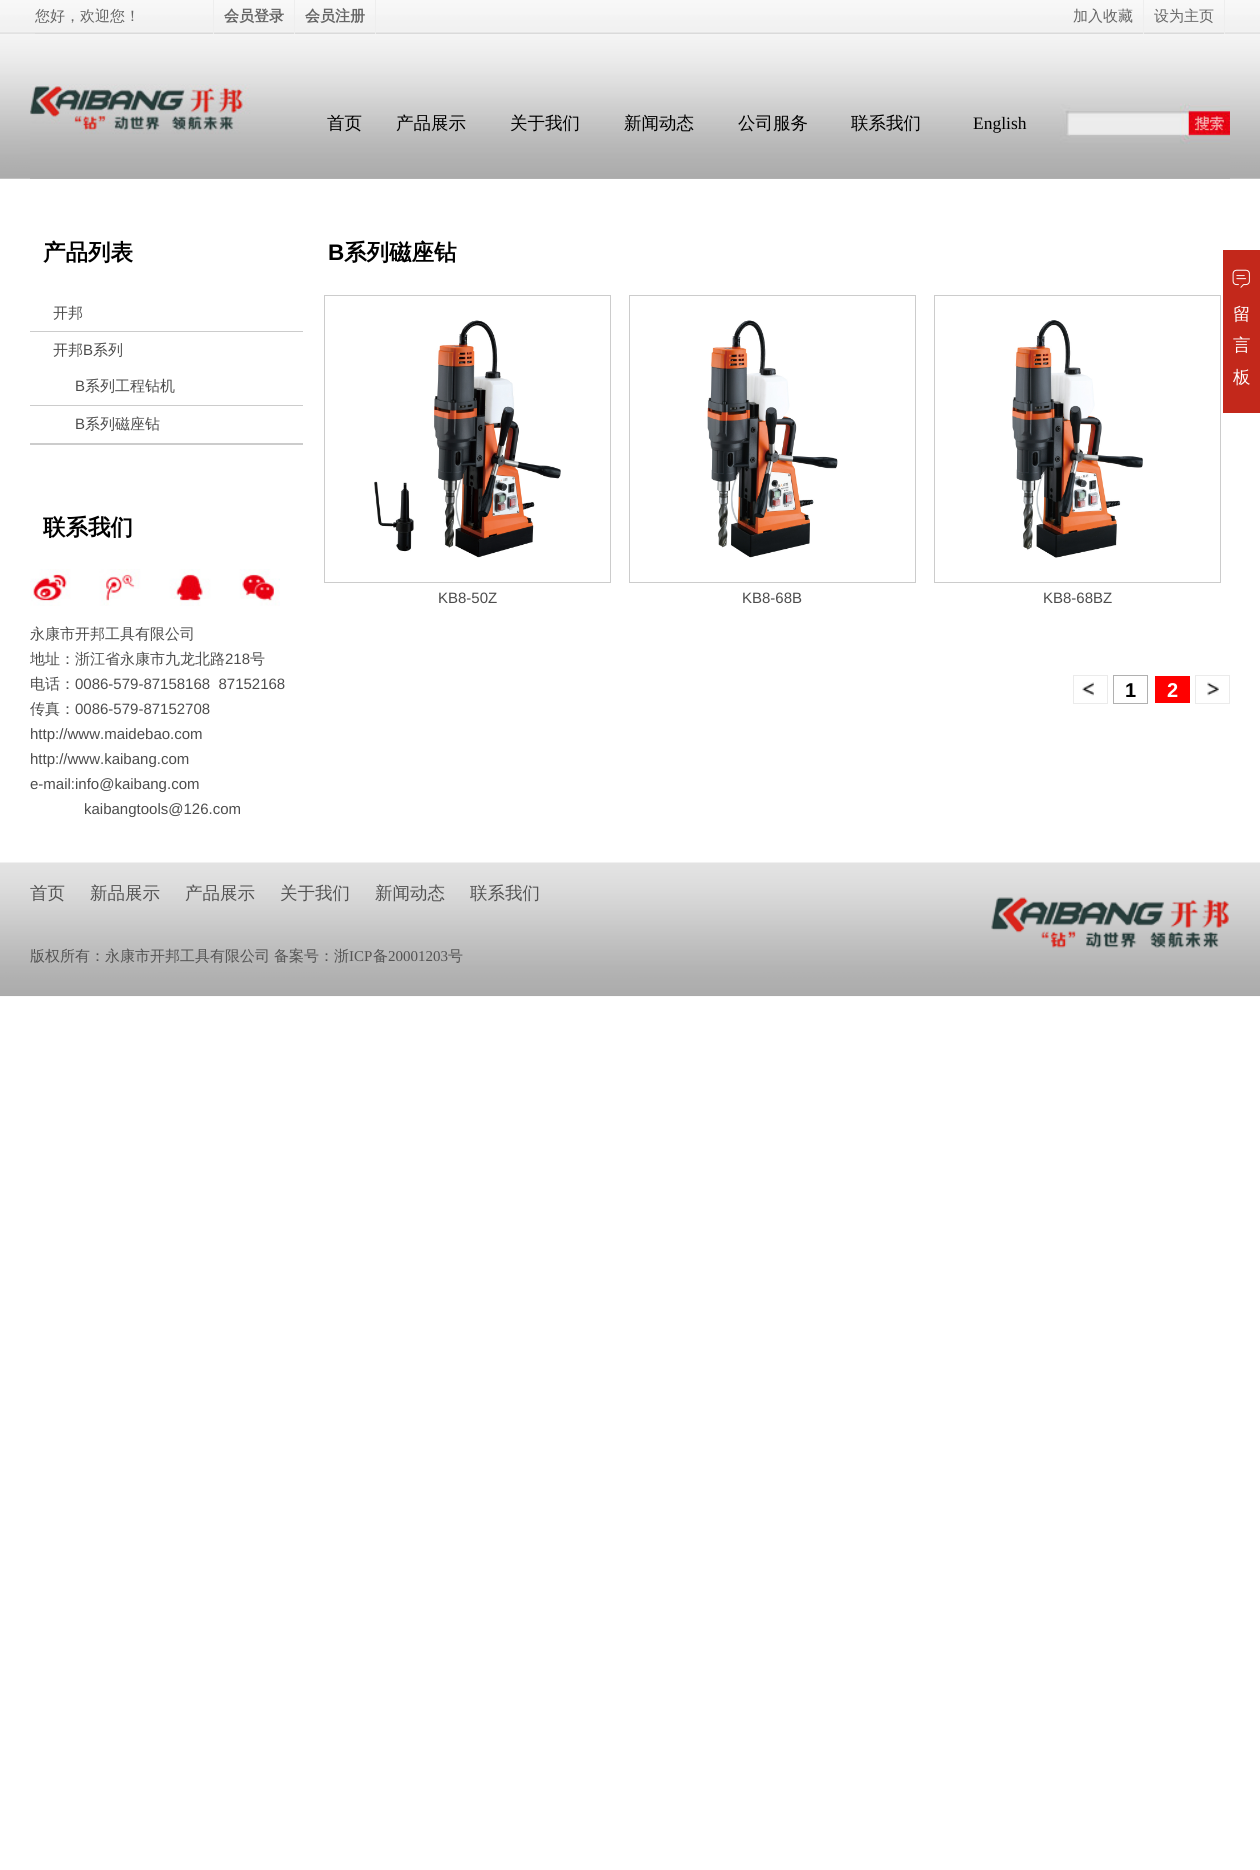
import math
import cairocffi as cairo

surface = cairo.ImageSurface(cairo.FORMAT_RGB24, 1260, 1870)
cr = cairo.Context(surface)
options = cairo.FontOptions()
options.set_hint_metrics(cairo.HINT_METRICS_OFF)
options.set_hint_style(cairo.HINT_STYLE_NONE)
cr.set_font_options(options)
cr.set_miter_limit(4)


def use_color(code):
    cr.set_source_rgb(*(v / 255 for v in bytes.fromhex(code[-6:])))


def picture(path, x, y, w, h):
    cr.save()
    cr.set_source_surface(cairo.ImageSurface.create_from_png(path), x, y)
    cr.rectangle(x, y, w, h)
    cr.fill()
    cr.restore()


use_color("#ffffff")
cr.paint()
picture("img1.png", 0, 0, 1260, 34)
use_color("#dadada")
cr.rectangle(35, 33, 1190, 1)
cr.fill()
use_color("#eeeeee")
cr.rectangle(213, 0, 1, 34)
cr.fill()
cr.select_font_face("WenQuanYi Zen Hei Medium")
cr.set_font_size(15)
use_color("#666666")
cr.move_to(35, 21)
cr.show_text("您好，欢迎您！")
use_color("#eeeeee")
cr.rectangle(294, 0, 1, 34)
cr.fill()
cr.select_font_face("WenQuanYi Zen Hei", cairo.FONT_SLANT_NORMAL, cairo.FONT_WEIGHT_BOLD)
use_color("#666666")
cr.move_to(224, 21)
cr.show_text("会员登录")
use_color("#eeeeee")
cr.rectangle(375, 0, 1, 34)
cr.fill()
use_color("#666666")
cr.move_to(305, 21)
cr.show_text("会员注册")
use_color("#eeeeee")
cr.rectangle(1143, 0, 1, 34)
cr.fill()
cr.select_font_face("WenQuanYi Zen Hei Medium")
use_color("#666666")
cr.move_to(1073, 21)
cr.show_text("加入收藏")
use_color("#eeeeee")
cr.rectangle(1224, 0, 1, 34)
cr.fill()
use_color("#666666")
cr.move_to(1154, 21)
cr.show_text("设为主页")
use_color("#c3281b")
cr.rectangle(1223, 250, 37, 163)
cr.fill()
picture("img2.png", 1232, 269, 18, 19)
cr.set_font_size(17.5)
use_color("#ffffff")
cr.move_to(1233, 320)
cr.show_text("留")
cr.move_to(1233, 351)
cr.show_text("言")
cr.move_to(1233, 383)
cr.show_text("板")
picture("img3.png", 0, 34, 1260, 145)
picture("img4.png", 30, 84, 1200, 95)
use_color("#000000")
cr.move_to(327, 129)
cr.show_text("首页")
cr.move_to(396, 129)
cr.show_text("产品展示")
cr.move_to(510, 129)
cr.show_text("关于我们")
cr.move_to(624, 129)
cr.show_text("新闻动态")
cr.move_to(738, 129)
cr.show_text("公司服务")
cr.move_to(851, 129)
cr.show_text("联系我们")
cr.select_font_face("Liberation Serif")
cr.move_to(973, 129)
cr.show_text("English")
cr.select_font_face("WenQuanYi Zen Hei", cairo.FONT_SLANT_NORMAL, cairo.FONT_WEIGHT_BOLD)
cr.set_font_size(22.5)
cr.move_to(43, 260)
cr.show_text("产品列表")
use_color("#cccccc")
cr.rectangle(30, 331, 273, 1)
cr.fill()
cr.select_font_face("WenQuanYi Zen Hei Medium")
cr.set_font_size(15)
use_color("#4c4c4c")
cr.move_to(53, 318)
cr.show_text("开邦")
use_color("#cccccc")
cr.rectangle(30, 443, 273, 2)
cr.fill()
use_color("#4c4c4c")
cr.move_to(53, 355)
cr.show_text("开邦")
cr.select_font_face("Liberation Sans")
cr.move_to(83, 355)
cr.show_text("B")
cr.select_font_face("WenQuanYi Zen Hei Medium")
cr.move_to(93, 355)
cr.show_text("系列")
use_color("#cccccc")
cr.rectangle(30, 405, 273, 1)
cr.fill()
cr.select_font_face("Liberation Sans")
use_color("#4c4c4c")
cr.move_to(75, 391)
cr.show_text("B")
cr.select_font_face("WenQuanYi Zen Hei Medium")
cr.move_to(85, 391)
cr.show_text("系列工程钻机")
cr.select_font_face("Liberation Sans")
cr.move_to(75, 429)
cr.show_text("B")
cr.select_font_face("WenQuanYi Zen Hei Medium")
cr.move_to(85, 429)
cr.show_text("系列磁座钻")
cr.select_font_face("WenQuanYi Zen Hei", cairo.FONT_SLANT_NORMAL, cairo.FONT_WEIGHT_BOLD)
cr.set_font_size(22.5)
use_color("#000000")
cr.move_to(43, 535)
cr.show_text("联系我们")
picture("img5.png", 30, 569, 250, 37)
cr.select_font_face("WenQuanYi Zen Hei Medium")
cr.set_font_size(15)
use_color("#4c4c4c")
cr.move_to(30, 639)
cr.show_text("永康市开邦工具有限公司")
cr.move_to(30, 664)
cr.show_text("地址：浙江省永康市九龙北路")
cr.select_font_face("Liberation Sans")
cr.move_to(225, 664)
cr.show_text("218")
cr.select_font_face("WenQuanYi Zen Hei Medium")
cr.move_to(250, 664)
cr.show_text("号")
cr.move_to(30, 689)
cr.show_text("电话：")
cr.select_font_face("Liberation Sans")
cr.move_to(75, 689)
cr.show_text("0086-579-87158168  87152168")
cr.select_font_face("WenQuanYi Zen Hei Medium")
cr.move_to(30, 714)
cr.show_text("传真：")
cr.select_font_face("Liberation Sans")
cr.move_to(75, 714)
cr.show_text("0086-579-87152708")
cr.move_to(30, 739)
cr.show_text("http://www.maidebao.com")
cr.move_to(30, 764)
cr.show_text("http://www.kaibang.com")
cr.move_to(30, 789)
cr.show_text("e-mail:info@kaibang.com")
cr.move_to(84, 814)
cr.show_text("kaibangtools@126.com")
cr.select_font_face("Liberation Sans", cairo.FONT_SLANT_NORMAL, cairo.FONT_WEIGHT_BOLD)
cr.set_font_size(22.5)
use_color("#000000")
cr.move_to(328, 260)
cr.show_text("B")
cr.select_font_face("WenQuanYi Zen Hei", cairo.FONT_SLANT_NORMAL, cairo.FONT_WEIGHT_BOLD)
cr.move_to(344, 260)
cr.show_text("系列磁座钻")
cr.rectangle(324.5, 295.5, 286, 287)
use_color("#cccccc")
cr.set_line_width(1)
cr.stroke()
picture("img6.png", 374, 320, 187, 238)
cr.select_font_face("Liberation Sans")
cr.set_font_size(15)
use_color("#4c4c4c")
cr.move_to(438, 603)
cr.show_text("KB8-50Z")
cr.rectangle(629.5, 295.5, 286, 287)
use_color("#cccccc")
cr.stroke()
picture("img7.png", 707, 320, 131, 238)
use_color("#4c4c4c")
cr.move_to(742, 603)
cr.show_text("KB8-68B")
cr.rectangle(934.5, 295.5, 286, 287)
use_color("#cccccc")
cr.stroke()
picture("img8.png", 1012, 320, 131, 238)
use_color("#4c4c4c")
cr.move_to(1043, 603)
cr.show_text("KB8-68BZ")
picture("img9.png", 1082, 682, 12, 14)
cr.rectangle(1073.5, 675.5, 34, 28)
use_color("#ebebeb")
cr.stroke()
cr.rectangle(1113.5, 675.5, 34, 28)
use_color("#b1b1b1")
cr.stroke()
cr.select_font_face("Liberation Sans", cairo.FONT_SLANT_NORMAL, cairo.FONT_WEIGHT_BOLD)
cr.set_font_size(20)
use_color("#000000")
cr.move_to(1125, 697)
cr.show_text("1")
use_color("#ff0000")
cr.rectangle(1155, 676, 35, 27)
cr.fill()
use_color("#ffffff")
cr.move_to(1167, 697)
cr.show_text("2")
picture("img10.png", 1207, 682, 12, 14)
cr.rectangle(1195.5, 675.5, 34, 28)
use_color("#ebebeb")
cr.stroke()
picture("img11.png", 0, 862, 1260, 135)
picture("img12.png", 991, 897, 238, 51)
cr.select_font_face("WenQuanYi Zen Hei Medium")
cr.set_font_size(17.5)
use_color("#535353")
cr.move_to(30, 899)
cr.show_text("首页")
cr.move_to(90, 899)
cr.show_text("新品展示")
cr.move_to(185, 899)
cr.show_text("产品展示")
cr.move_to(280, 899)
cr.show_text("关于我们")
cr.move_to(375, 899)
cr.show_text("新闻动态")
cr.move_to(470, 899)
cr.show_text("联系我们")
cr.set_font_size(15)
cr.move_to(30, 961)
cr.show_text("版权所有：永康市开邦工具有限公司")
cr.move_to(274, 961)
cr.show_text("备案号：浙")
cr.select_font_face("Liberation Serif")
cr.move_to(349, 961)
cr.show_text("ICP")
cr.select_font_face("WenQuanYi Zen Hei Medium")
cr.move_to(373, 961)
cr.show_text("备")
cr.select_font_face("Liberation Serif")
cr.move_to(388, 961)
cr.show_text("20001203")
cr.select_font_face("WenQuanYi Zen Hei Medium")
cr.move_to(448, 961)
cr.show_text("号")
surface.write_to_png("result.png")
